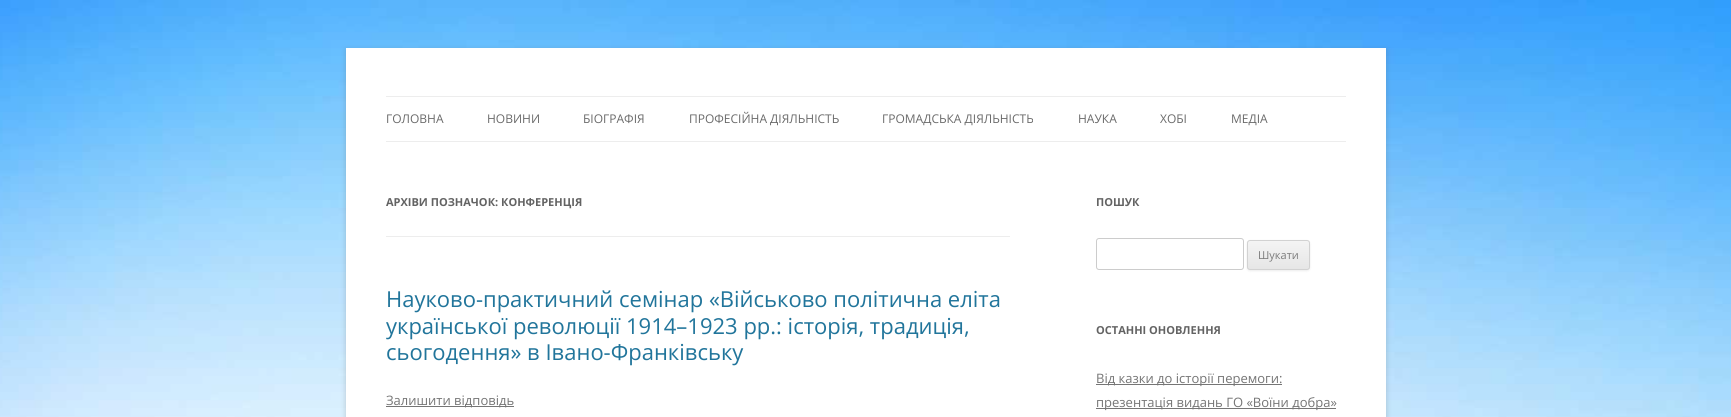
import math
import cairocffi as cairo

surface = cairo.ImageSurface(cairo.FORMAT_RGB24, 1731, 417)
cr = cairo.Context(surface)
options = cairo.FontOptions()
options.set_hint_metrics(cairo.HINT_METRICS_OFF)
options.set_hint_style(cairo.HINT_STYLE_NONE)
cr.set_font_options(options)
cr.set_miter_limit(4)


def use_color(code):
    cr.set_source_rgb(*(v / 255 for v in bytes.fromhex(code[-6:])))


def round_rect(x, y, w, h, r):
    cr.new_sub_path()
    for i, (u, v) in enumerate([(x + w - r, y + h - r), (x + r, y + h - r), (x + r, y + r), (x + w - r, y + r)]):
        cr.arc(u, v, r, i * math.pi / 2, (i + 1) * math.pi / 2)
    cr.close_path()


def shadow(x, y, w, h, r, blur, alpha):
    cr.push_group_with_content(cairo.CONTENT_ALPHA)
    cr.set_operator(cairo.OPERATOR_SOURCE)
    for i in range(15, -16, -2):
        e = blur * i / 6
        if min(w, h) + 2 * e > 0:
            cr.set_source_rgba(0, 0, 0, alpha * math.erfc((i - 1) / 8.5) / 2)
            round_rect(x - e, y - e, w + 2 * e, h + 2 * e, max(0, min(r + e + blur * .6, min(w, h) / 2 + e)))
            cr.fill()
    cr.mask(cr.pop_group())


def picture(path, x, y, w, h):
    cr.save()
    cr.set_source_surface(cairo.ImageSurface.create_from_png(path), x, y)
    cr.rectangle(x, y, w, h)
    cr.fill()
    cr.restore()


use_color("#ffffff")
cr.paint()
picture("img1.png", 0, 0, 1731, 417)
use_color("#646464")
shadow(346, 50, 1040, 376, 0, 3, 0.3)
use_color("#ffffff")
cr.rectangle(346, 48, 1040, 369)
cr.fill()
use_color("#ededed")
cr.rectangle(386, 96, 960, 1)
cr.fill()
cr.rectangle(386, 141, 960, 1)
cr.fill()
cr.select_font_face("Open Sans")
cr.set_font_size(12)
use_color("#6a6a6a")
cr.move_to(386, 123)
cr.show_text("ГОЛОВНА")
cr.move_to(487, 123)
cr.show_text("НОВИНИ")
cr.move_to(583, 123)
cr.show_text("БІОГРАФІЯ")
cr.move_to(689, 123)
cr.show_text("ПРОФЕСІЙНА ДІЯЛЬНІСТЬ")
cr.move_to(882, 123)
cr.show_text("ГРОМАДСЬКА ДІЯЛЬНІСТЬ")
cr.move_to(1078, 123)
cr.show_text("НАУКА")
cr.move_to(1160, 123)
cr.show_text("ХОБІ")
cr.move_to(1231, 123)
cr.show_text("МЕДІА")
use_color("#ededed")
cr.rectangle(386, 236, 624, 1)
cr.fill()
cr.select_font_face("Open Sans", cairo.FONT_SLANT_NORMAL, cairo.FONT_WEIGHT_BOLD)
cr.set_font_size(11)
use_color("#636363")
cr.move_to(386, 206)
cr.show_text("АРХІВИ ПОЗНАЧОК: КОНФЕРЕНЦІЯ")
cr.select_font_face("Open Sans")
cr.set_font_size(22)
use_color("#21759b")
cr.move_to(386, 307)
cr.show_text("Науково-практичний семінар «Військово політична еліта")
cr.move_to(386, 334)
cr.show_text("української революції 1914–1923 рр.: історія, традиція,")
cr.move_to(386, 360)
cr.show_text("сьогодення» в Івано-Франківську")
use_color("#757575")
cr.rectangle(386, 406, 128, 1)
cr.fill()
cr.set_font_size(13)
cr.move_to(386, 405)
cr.show_text("Залишити відповідь")
cr.select_font_face("Open Sans", cairo.FONT_SLANT_NORMAL, cairo.FONT_WEIGHT_BOLD)
cr.set_font_size(11)
use_color("#636363")
cr.move_to(1096, 206)
cr.show_text("ПОШУК")
round_rect(1096.5, 238.5, 147, 31, 2.5)
use_color("#cccccc")
cr.set_line_width(1)
cr.stroke()
use_color("#404040")
shadow(1247, 241, 63, 30, 3, 1, 0.1)
cr.save()
round_rect(1247, 240, 63, 30, 3)
cr.clip()
gradient = cairo.LinearGradient(1279, 241, 1279, 269)
gradient.add_color_stop_rgba(0, 0.957, 0.957, 0.957, 1)
gradient.add_color_stop_rgba(1, 0.902, 0.902, 0.902, 1)
cr.set_source(gradient)
cr.rectangle(1247, 241, 63, 28)
cr.fill()
cr.restore()
round_rect(1247.5, 240.5, 62, 29, 2.5)
use_color("#d2d2d2")
cr.stroke()
cr.select_font_face("Open Sans")
use_color("#7c7c7c")
cr.move_to(1258, 259)
cr.show_text("Шукати")
cr.select_font_face("Open Sans", cairo.FONT_SLANT_NORMAL, cairo.FONT_WEIGHT_BOLD)
use_color("#636363")
cr.move_to(1096, 334)
cr.show_text("ОСТАННІ ОНОВЛЕННЯ")
use_color("#757575")
cr.rectangle(1096, 384, 186, 1)
cr.fill()
cr.select_font_face("Open Sans")
cr.set_font_size(13)
cr.move_to(1096, 383)
cr.show_text("Від казки до історії перемоги:")
cr.rectangle(1096, 408, 240, 1)
cr.fill()
cr.move_to(1096, 407)
cr.show_text("презентація видань ГО «Воїни добра»")
surface.write_to_png("result.png")
